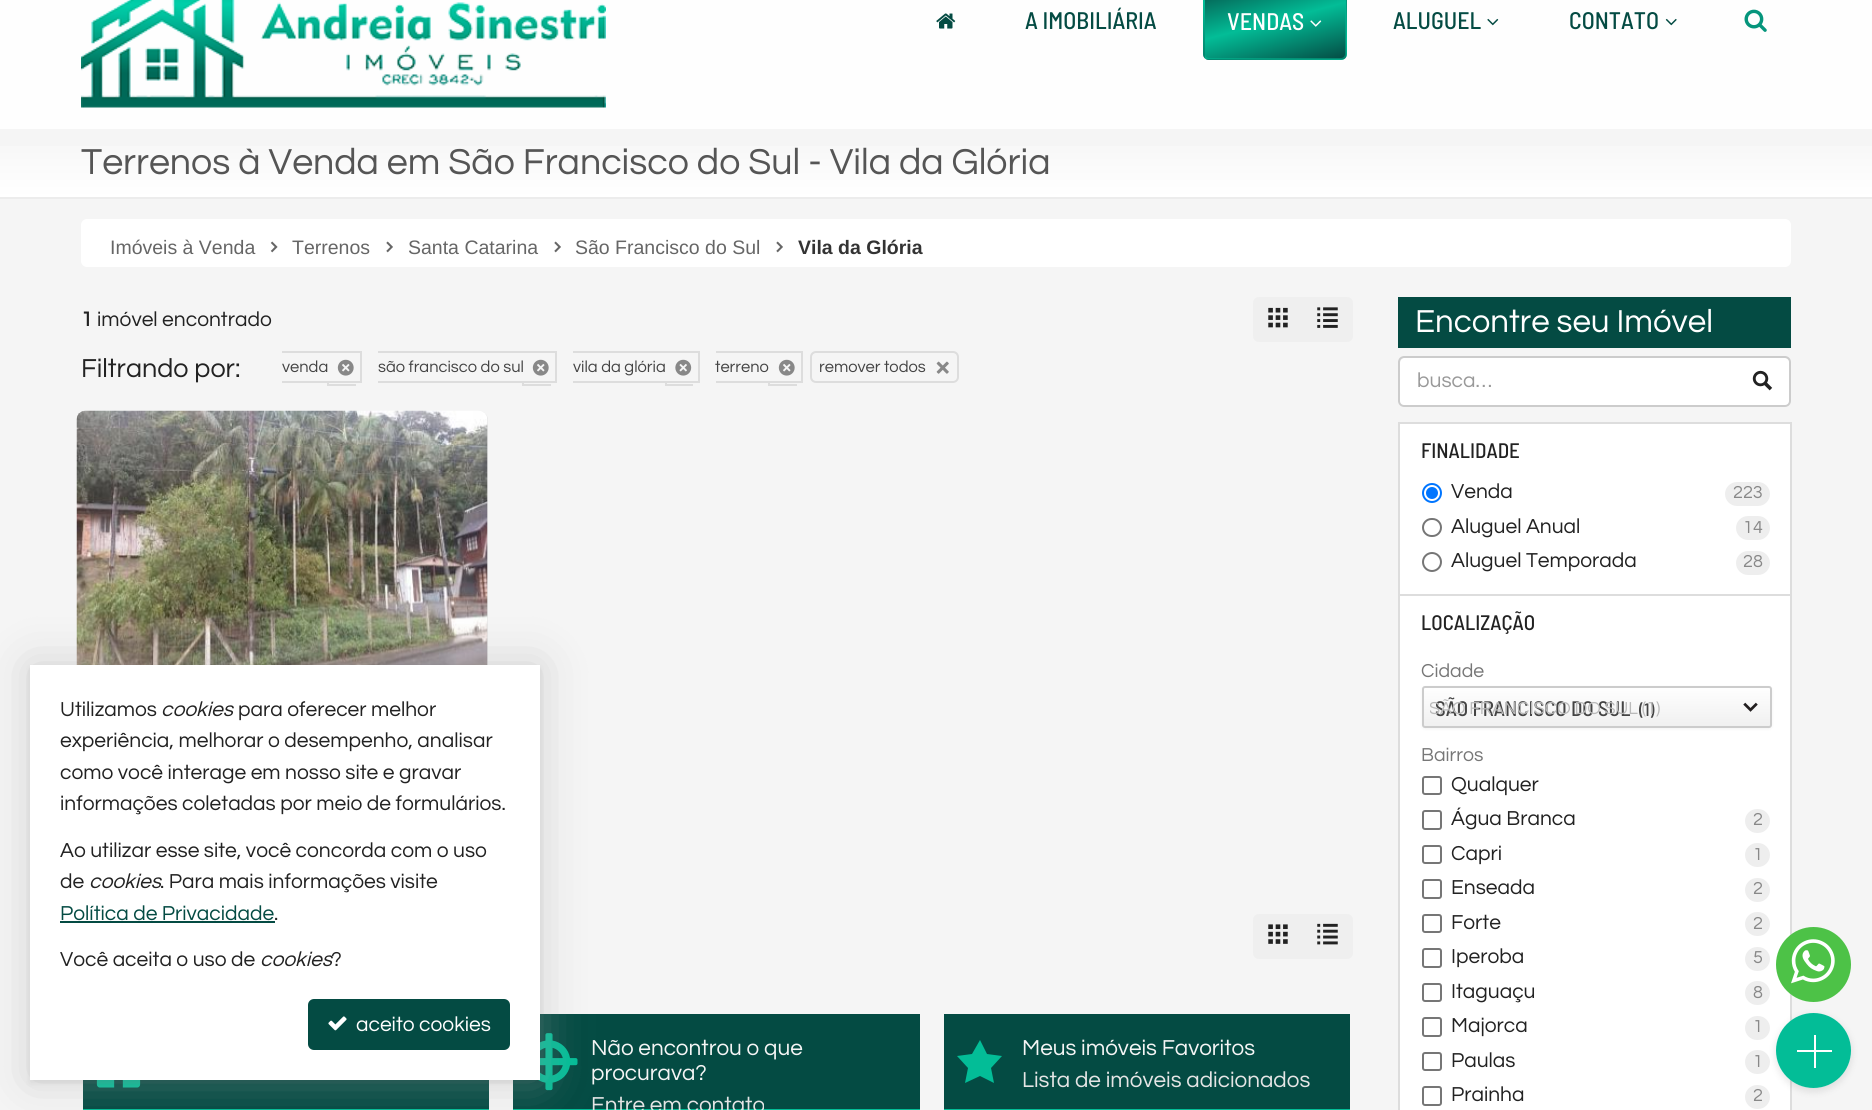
import math
import cairocffi as cairo

surface = cairo.ImageSurface(cairo.FORMAT_RGB24, 1872, 1110)
cr = cairo.Context(surface)
options = cairo.FontOptions()
options.set_hint_metrics(cairo.HINT_METRICS_OFF)
options.set_hint_style(cairo.HINT_STYLE_NONE)
cr.set_font_options(options)
cr.set_miter_limit(4)


def use_color(code):
    cr.set_source_rgb(*(v / 255 for v in bytes.fromhex(code[-6:])))


def round_rect(x, y, w, h, r):
    cr.new_sub_path()
    for i, (u, v) in enumerate([(x + w - r, y + h - r), (x + r, y + h - r), (x + r, y + r), (x + w - r, y + r)]):
        cr.arc(u, v, r, i * math.pi / 2, (i + 1) * math.pi / 2)
    cr.close_path()


def shadow(x, y, w, h, r, blur, alpha):
    cr.push_group_with_content(cairo.CONTENT_ALPHA)
    cr.set_operator(cairo.OPERATOR_SOURCE)
    for i in range(15, -16, -2):
        e = blur * i / 6
        if min(w, h) + 2 * e > 0:
            cr.set_source_rgba(0, 0, 0, alpha * math.erfc((i - 1) / 8.5) / 2)
            round_rect(x - e, y - e, w + 2 * e, h + 2 * e, max(0, min(r + e + blur * .6, min(w, h) / 2 + e)))
            cr.fill()
    cr.mask(cr.pop_group())


def picture(path, x, y, w, h):
    cr.save()
    cr.set_source_surface(cairo.ImageSurface.create_from_png(path), x, y)
    cr.rectangle(x, y, w, h)
    cr.fill()
    cr.restore()


use_color("#f5f5f5")
cr.paint()
use_color("#fefefe")
cr.rectangle(0, 0, 1872, 129)
cr.fill()
picture("img1.png", 81, 0, 525, 108)
picture("img2.png", 936, 13, 20, 16)
cr.select_font_face("Barlow Semi Condensed Medium")
cr.set_font_size(24)
use_color("#044b43")
cr.move_to(1025, 29)
cr.show_text("A IMOBILIÁRIA")
cr.save()
round_rect(1203, -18, 144, 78, 6)
cr.clip()
gradient = cairo.LinearGradient(1120, -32, 1148, 74)
gradient.add_color_stop_rgba(0, 0.016, 0.294, 0.263, 1)
gradient.add_color_stop_rgba(0.5, 0.012, 0.741, 0.592, 1)
gradient.add_color_stop_rgba(1, 0.016, 0.294, 0.263, 1)
cr.set_source(gradient)
cr.rectangle(1203, 0, 2, 59)
cr.fill()
gradient = cairo.LinearGradient(1261, -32, 1289, 74)
gradient.add_color_stop_rgba(0, 0.016, 0.294, 0.263, 1)
gradient.add_color_stop_rgba(0.5, 0.012, 0.741, 0.592, 1)
gradient.add_color_stop_rgba(1, 0.016, 0.294, 0.263, 1)
cr.set_source(gradient)
cr.rectangle(1205, 0, 141, 59)
cr.fill()
gradient = cairo.LinearGradient(1402, -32, 1430, 74)
gradient.add_color_stop_rgba(0, 0.016, 0.294, 0.263, 1)
gradient.add_color_stop_rgba(0.5, 0.012, 0.741, 0.592, 1)
gradient.add_color_stop_rgba(1, 0.016, 0.294, 0.263, 1)
cr.set_source(gradient)
cr.rectangle(1346, 0, 1, 59)
cr.fill()
gradient = cairo.LinearGradient(1261, 43, 1289, 149)
gradient.add_color_stop_rgba(0, 0.016, 0.294, 0.263, 1)
gradient.add_color_stop_rgba(0.5, 0.012, 0.741, 0.592, 1)
gradient.add_color_stop_rgba(1, 0.016, 0.294, 0.263, 1)
cr.set_source(gradient)
cr.rectangle(1205, 59, 141, 1)
cr.fill()
cr.restore()
round_rect(1204, -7, 142, 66, 5)
cr.set_source_rgba(0.012, 0.741, 0.592, 0.5)
cr.stroke()
use_color("#ffffff")
cr.move_to(1227, 30)
cr.show_text("VENDAS")
picture("img3.png", 1310, 20, 12, 7)
use_color("#044b43")
cr.move_to(1393, 29)
cr.show_text("ALUGUEL")
picture("img4.png", 1487, 18, 12, 8)
cr.move_to(1569, 29)
cr.show_text("CONTATO")
picture("img5.png", 1665, 18, 12, 8)
picture("img6.png", 1744, 9, 23, 23)
gradient = cairo.LinearGradient(936, 129, 936, 197)
gradient.add_color_stop_rgba(0, 0.961, 0.961, 0.961, 1)
gradient.add_color_stop_rgba(1, 1, 1, 1, 1)
cr.set_source(gradient)
cr.rectangle(0, 146, 1872, 51)
cr.fill()
use_color("#ececec")
cr.rectangle(0, 197, 1872, 2)
cr.fill()
cr.select_font_face("Questrial")
cr.set_font_size(37.5)
use_color("#555555")
cr.move_to(81, 174)
cr.show_text("Terrenos à Venda em São Francisco do Sul - Vila da Glória")
use_color("#ffffff")
round_rect(81, 219, 1710, 48, 6)
cr.fill()
cr.select_font_face("Liberation Sans")
cr.set_font_size(19.5)
use_color("#666666")
cr.move_to(110, 254)
cr.show_text("Imóveis à Venda")
picture("img7.png", 270, 241, 8, 12)
cr.move_to(292, 254)
cr.show_text("Terrenos")
picture("img8.png", 386, 241, 7, 12)
cr.move_to(408, 254)
cr.show_text("Santa Catarina")
picture("img8.png", 554, 241, 7, 12)
cr.move_to(575, 254)
cr.show_text("São Francisco do Sul")
picture("img8.png", 776, 241, 7, 12)
cr.select_font_face("Liberation Sans", cairo.FONT_SLANT_NORMAL, cairo.FONT_WEIGHT_BOLD)
use_color("#333333")
cr.move_to(798, 254)
cr.show_text("Vila da Glória")
cr.select_font_face("Questrial", cairo.FONT_SLANT_NORMAL, cairo.FONT_WEIGHT_BOLD)
cr.set_font_size(21)
use_color("#222222")
cr.move_to(81, 326)
cr.show_text("1")
cr.select_font_face("Questrial")
cr.move_to(97, 326)
cr.show_text("imóvel encontrado")
use_color("#efefef")
cr.new_path()
cr.move_to(1302, 297)
cr.line_to(1347, 297)
cr.curve_to(1350.5, 297, 1353, 299.5, 1353, 303)
cr.line_to(1353, 336)
cr.curve_to(1353, 339.5, 1350.5, 342, 1347, 342)
cr.line_to(1302, 342)
cr.close_path()
cr.fill()
cr.new_path()
cr.move_to(1259, 297)
cr.line_to(1304, 297)
cr.line_to(1304, 342)
cr.line_to(1259, 342)
cr.curve_to(1255.5, 342, 1253, 339.5, 1253, 336)
cr.line_to(1253, 303)
cr.curve_to(1253, 299.5, 1255.5, 297, 1259, 297)
cr.close_path()
cr.fill()
picture("img9.png", 1268, 307, 20, 21)
picture("img10.png", 1317, 307, 21, 21)
cr.set_font_size(27)
use_color("#222222")
cr.move_to(81, 377)
cr.show_text("Filtrando por:")
use_color("#dddddd")
cr.rectangle(327, 384, 29, 2)
cr.fill()
cr.rectangle(327, 383, 2, 3)
cr.fill()
cr.rectangle(282, 351, 80, 2)
cr.fill()
cr.rectangle(360, 351, 2, 32)
cr.fill()
cr.rectangle(282, 381, 80, 2)
cr.fill()
cr.set_font_size(16.5)
use_color("#444444")
cr.move_to(282, 372)
cr.show_text("venda")
picture("img11.png", 337, 359, 17, 17)
use_color("#dddddd")
cr.rectangle(522, 384, 29, 2)
cr.fill()
cr.rectangle(522, 383, 2, 3)
cr.fill()
cr.rectangle(378, 351, 179, 2)
cr.fill()
cr.rectangle(555, 351, 2, 32)
cr.fill()
cr.rectangle(378, 381, 179, 2)
cr.fill()
use_color("#444444")
cr.move_to(378, 372)
cr.show_text("são francisco do sul")
picture("img11.png", 532, 359, 17, 17)
use_color("#dddddd")
cr.rectangle(665, 384, 28, 2)
cr.fill()
cr.rectangle(665, 383, 2, 3)
cr.fill()
cr.rectangle(573, 351, 126, 2)
cr.fill()
cr.rectangle(698, 351, 2, 32)
cr.fill()
cr.rectangle(573, 381, 126, 2)
cr.fill()
use_color("#444444")
cr.move_to(573, 372)
cr.show_text("vila da glória")
picture("img12.png", 675, 359, 17, 17)
use_color("#dddddd")
cr.rectangle(768, 384, 29, 2)
cr.fill()
cr.rectangle(768, 383, 2, 3)
cr.fill()
cr.rectangle(716, 351, 87, 2)
cr.fill()
cr.rectangle(801, 351, 2, 32)
cr.fill()
cr.rectangle(716, 381, 87, 2)
cr.fill()
use_color("#444444")
cr.move_to(715, 372)
cr.show_text("terreno")
picture("img11.png", 778, 359, 17, 17)
round_rect(811, 352, 147, 30, 5)
use_color("#dddddd")
cr.stroke()
use_color("#444444")
cr.move_to(819, 372)
cr.show_text("remover todos")
picture("img13.png", 936, 361, 13, 13)
use_color("#e5e5e5")
cr.new_path()
cr.move_to(86, 411)
cr.line_to(479, 411)
cr.curve_to(484, 411, 488, 415, 488, 420)
cr.line_to(488, 686)
cr.line_to(77, 686)
cr.line_to(77, 420)
cr.curve_to(77, 415, 81, 411, 86, 411)
cr.close_path()
cr.fill()
picture("img14.png", 76, 410, 412, 255)
use_color("#efefef")
cr.new_path()
cr.move_to(1302, 914)
cr.line_to(1347, 914)
cr.curve_to(1350.5, 914, 1353, 916.5, 1353, 920)
cr.line_to(1353, 953)
cr.curve_to(1353, 956.5, 1350.5, 959, 1347, 959)
cr.line_to(1302, 959)
cr.close_path()
cr.fill()
cr.new_path()
cr.move_to(1259, 914)
cr.line_to(1304, 914)
cr.line_to(1304, 959)
cr.line_to(1259, 959)
cr.curve_to(1255.5, 959, 1253, 956.5, 1253, 953)
cr.line_to(1253, 920)
cr.curve_to(1253, 916.5, 1255.5, 914, 1259, 914)
cr.close_path()
cr.fill()
picture("img15.png", 1268, 924, 20, 20)
picture("img16.png", 1317, 923, 21, 22)
use_color("#044b43")
cr.rectangle(513, 1014, 407, 95)
cr.fill()
use_color("#03bd97")
cr.rectangle(513, 1109, 407, 1)
cr.fill()
picture("img17.png", 538, 1033, 40, 58)
cr.set_font_size(22.5)
use_color("#f5f5f5")
cr.move_to(591, 1055)
cr.show_text("Não encontrou o que")
cr.move_to(591, 1080)
cr.show_text("procurava?")
use_color("#e5e5e5")
cr.move_to(591, 1112)
cr.show_text("Entre em contato")
use_color("#044b43")
cr.rectangle(944, 1014, 406, 95)
cr.fill()
use_color("#03bd97")
cr.rectangle(944, 1109, 406, 1)
cr.fill()
cr.new_path()
cr.move_to(980, 1040)
cr.line_to(987, 1054)
cr.line_to(1002, 1056)
cr.line_to(991, 1068)
cr.line_to(994, 1083)
cr.line_to(980, 1076)
cr.line_to(965, 1083)
cr.line_to(968, 1068)
cr.line_to(957, 1056)
cr.line_to(972, 1054)
cr.close_path()
cr.fill()
use_color("#f5f5f5")
cr.move_to(1022, 1055)
cr.show_text("Meus imóveis Favoritos")
use_color("#e5e5e5")
cr.move_to(1022, 1087)
cr.show_text("Lista de imóveis adicionados")
use_color("#044b43")
cr.rectangle(83, 1080, 406, 29)
cr.fill()
use_color("#03bd97")
cr.rectangle(83, 1109, 406, 1)
cr.fill()
picture("img18.png", 96, 1080, 45, 8)
use_color("#044b43")
cr.rectangle(1398, 297, 393, 51)
cr.fill()
cr.set_font_size(33)
use_color("#ffffff")
cr.move_to(1415, 332)
cr.show_text("Encontre seu Imóvel")
round_rect(1398, 356, 393, 51, 6)
cr.fill()
use_color("#ececec")
cr.new_path()
cr.move_to(1404, 358)
cr.line_to(1785, 358)
cr.curve_to(1787, 358, 1790, 361, 1790, 363)
cr.line_to(1790, 362)
cr.curve_to(1790, 359, 1788, 357, 1785, 357)
cr.line_to(1405, 357)
cr.curve_to(1402, 357, 1400, 359, 1400, 362)
cr.line_to(1400, 363)
cr.curve_to(1400, 361, 1402, 358, 1404, 358)
cr.close_path()
cr.fill()
round_rect(1399, 357, 391, 49, 5)
use_color("#cccccc")
cr.stroke()
cr.set_font_size(21)
use_color("#999999")
cr.move_to(1417, 387)
cr.show_text("busca…")
picture("img19.png", 1752, 370, 21, 21)
use_color("#ffffff")
cr.rectangle(1400, 424, 390, 170)
cr.fill()
use_color("#dddddd")
cr.rectangle(1398, 422, 393, 2)
cr.fill()
cr.rectangle(1790, 422, 2, 172)
cr.fill()
cr.rectangle(1398, 422, 2, 172)
cr.fill()
cr.select_font_face("Barlow Semi Condensed Medium")
use_color("#222222")
cr.move_to(1421, 458)
cr.show_text("FINALIDADE")
cr.new_path()
cr.arc(1432, 493, 9, 0, 2 * math.pi)
use_color("#0075ff")
cr.stroke()
cr.arc(1432, 493, 6, 0, 2 * math.pi)
cr.fill()
cr.select_font_face("Questrial")
use_color("#222222")
cr.move_to(1451, 498)
cr.show_text("Venda")
use_color("#eeeeee")
round_rect(1725, 482, 45, 24, 12)
cr.fill()
cr.set_font_size(18)
use_color("#888888")
cr.move_to(1733, 498)
cr.show_text("223")
round_rect(1423, 519, 18, 17, 8.5)
use_color("#767676")
cr.stroke()
cr.set_font_size(21)
use_color("#222222")
cr.move_to(1451, 533)
cr.show_text("Aluguel Anual")
use_color("#eeeeee")
round_rect(1736, 516, 34, 24, 12)
cr.fill()
cr.set_font_size(18)
use_color("#888888")
cr.move_to(1743, 533)
cr.show_text("14")
cr.new_path()
cr.arc(1432, 562, 9, 0, 2 * math.pi)
use_color("#767676")
cr.stroke()
cr.set_font_size(21)
use_color("#222222")
cr.move_to(1451, 567)
cr.show_text("Aluguel Temporada")
use_color("#eeeeee")
round_rect(1736, 551, 34, 24, 12)
cr.fill()
cr.set_font_size(18)
use_color("#888888")
cr.move_to(1743, 567)
cr.show_text("28")
use_color("#ffffff")
cr.rectangle(1400, 596, 390, 514)
cr.fill()
use_color("#dddddd")
cr.rectangle(1398, 594, 393, 2)
cr.fill()
cr.rectangle(1790, 594, 2, 516)
cr.fill()
cr.rectangle(1398, 594, 2, 516)
cr.fill()
cr.select_font_face("Barlow Semi Condensed Medium")
cr.set_font_size(21)
use_color("#222222")
cr.move_to(1421, 630)
cr.show_text("LOCALIZAÇÃO")
cr.select_font_face("Questrial")
cr.set_font_size(19.5)
use_color("#777777")
cr.move_to(1421, 677)
cr.show_text("Cidade")
use_color("#000000")
shadow(1422, 687, 350, 42, 3, 1.5, 0.05)
cr.save()
round_rect(1422, 686, 350, 42, 3)
cr.clip()
gradient = cairo.LinearGradient(1597, 687, 1597, 726)
gradient.add_color_stop_rgba(0, 1, 1, 1, 1)
gradient.add_color_stop_rgba(1, 0.941, 0.941, 0.941, 1)
cr.set_source(gradient)
cr.rectangle(1422, 687, 350, 39)
cr.fill()
cr.restore()
round_rect(1423, 687, 348, 40, 2)
use_color("#cccccc")
cr.stroke()
cr.select_font_face("Barlow Semi Condensed Medium")
cr.set_font_size(21)
use_color("#444444")
cr.move_to(1435, 716)
cr.show_text("SÃO FRANCISCO DO SUL")
cr.set_font_size(18)
cr.move_to(1639, 716)
cr.show_text("(1)")
cr.save()
cr.rectangle(1430, 698, 316, 22)
cr.clip()
cr.select_font_face("Questrial")
use_color("#bababa")
cr.move_to(1429, 714)
cr.show_text("SÃO FRANCISCO DO SUL (1)")
cr.restore()
picture("img20.png", 1743, 702, 15, 10)
cr.select_font_face("Questrial")
cr.set_font_size(19.5)
use_color("#777777")
cr.move_to(1421, 761)
cr.show_text("Bairros")
round_rect(1423, 777, 18, 17, 2)
use_color("#767676")
cr.stroke()
cr.set_font_size(21)
use_color("#222222")
cr.move_to(1451, 791)
cr.show_text("Qualquer")
round_rect(1423, 811, 18, 18, 2)
use_color("#767676")
cr.stroke()
use_color("#222222")
cr.move_to(1451, 825)
cr.show_text("Água Branca")
use_color("#eeeeee")
round_rect(1745, 809, 25, 24, 12)
cr.fill()
cr.set_font_size(18)
use_color("#888888")
cr.move_to(1753, 825)
cr.show_text("2")
round_rect(1423, 846, 18, 17, 2)
use_color("#767676")
cr.stroke()
cr.set_font_size(21)
use_color("#222222")
cr.move_to(1451, 860)
cr.show_text("Capri")
use_color("#eeeeee")
round_rect(1745, 843, 25, 24, 12)
cr.fill()
cr.set_font_size(18)
use_color("#888888")
cr.move_to(1753, 860)
cr.show_text("1")
round_rect(1423, 880, 18, 18, 2)
use_color("#767676")
cr.stroke()
cr.set_font_size(21)
use_color("#222222")
cr.move_to(1451, 894)
cr.show_text("Enseada")
use_color("#eeeeee")
round_rect(1745, 878, 25, 24, 12)
cr.fill()
cr.set_font_size(18)
use_color("#888888")
cr.move_to(1753, 894)
cr.show_text("2")
round_rect(1423, 915, 18, 17, 2)
use_color("#767676")
cr.stroke()
cr.set_font_size(21)
use_color("#222222")
cr.move_to(1451, 929)
cr.show_text("Forte")
use_color("#eeeeee")
round_rect(1745, 912, 25, 24, 12)
cr.fill()
cr.set_font_size(18)
use_color("#888888")
cr.move_to(1753, 929)
cr.show_text("2")
round_rect(1423, 949, 18, 18, 2)
use_color("#767676")
cr.stroke()
cr.set_font_size(21)
use_color("#222222")
cr.move_to(1451, 963)
cr.show_text("Iperoba")
use_color("#eeeeee")
round_rect(1745, 947, 25, 24, 12)
cr.fill()
cr.set_font_size(18)
use_color("#888888")
cr.move_to(1753, 963)
cr.show_text("5")
round_rect(1423, 984, 18, 17, 2)
use_color("#767676")
cr.stroke()
cr.set_font_size(21)
use_color("#222222")
cr.move_to(1451, 998)
cr.show_text("Itaguaçu")
use_color("#eeeeee")
round_rect(1745, 981, 25, 24, 12)
cr.fill()
cr.set_font_size(18)
use_color("#888888")
cr.move_to(1753, 998)
cr.show_text("8")
round_rect(1423, 1018, 18, 18, 2)
use_color("#767676")
cr.stroke()
cr.set_font_size(21)
use_color("#222222")
cr.move_to(1451, 1032)
cr.show_text("Majorca")
use_color("#eeeeee")
round_rect(1745, 1016, 25, 24, 12)
cr.fill()
cr.set_font_size(18)
use_color("#888888")
cr.move_to(1753, 1032)
cr.show_text("1")
round_rect(1423, 1053, 18, 17, 2)
use_color("#767676")
cr.stroke()
cr.set_font_size(21)
use_color("#222222")
cr.move_to(1451, 1067)
cr.show_text("Paulas")
use_color("#eeeeee")
round_rect(1745, 1050, 25, 24, 12)
cr.fill()
cr.set_font_size(18)
use_color("#888888")
cr.move_to(1753, 1067)
cr.show_text("1")
round_rect(1423, 1087, 18, 18, 2)
use_color("#767676")
cr.stroke()
cr.set_font_size(21)
use_color("#222222")
cr.move_to(1451, 1101)
cr.show_text("Prainha")
use_color("#eeeeee")
round_rect(1745, 1085, 25, 24, 12)
cr.fill()
cr.set_font_size(18)
use_color("#888888")
cr.move_to(1753, 1101)
cr.show_text("2")
use_color("#000000")
shadow(30, 668, 510, 415, 0, 3, 0.07)
use_color("#9f9f9f")
shadow(30, 665, 510, 415, 0, 22.5, 0.44)
use_color("#ffffff")
cr.rectangle(30, 665, 510, 415)
cr.fill()
cr.set_font_size(21)
use_color("#222222")
cr.move_to(60, 716)
cr.show_text("Utilizamos")
cr.select_font_face("Questrial", cairo.FONT_SLANT_ITALIC)
cr.move_to(161, 716)
cr.show_text("cookies")
cr.select_font_face("Questrial")
cr.move_to(238, 716)
cr.show_text("para oferecer melhor")
cr.move_to(60, 747)
cr.show_text("experiência, melhorar o desempenho, analisar")
cr.move_to(60, 779)
cr.show_text("como você interage em nosso site e gravar")
cr.move_to(60, 810)
cr.show_text("informações coletadas por meio de formulários.")
cr.move_to(60, 857)
cr.show_text("Ao utilizar esse site, você concorda com o uso")
cr.move_to(60, 888)
cr.show_text("de")
cr.select_font_face("Questrial", cairo.FONT_SLANT_ITALIC)
cr.move_to(89, 888)
cr.show_text("cookies")
cr.select_font_face("Questrial")
cr.move_to(160, 888)
cr.show_text(". Para mais informações visite")
use_color("#044b43")
cr.move_to(60, 920)
cr.show_text("Política de Privacidade")
cr.rectangle(60, 921, 215, 2)
cr.fill()
use_color("#222222")
cr.move_to(274, 920)
cr.show_text(".")
cr.move_to(60, 966)
cr.show_text("Você aceita o uso de")
cr.select_font_face("Questrial", cairo.FONT_SLANT_ITALIC)
cr.move_to(260, 966)
cr.show_text("cookies")
cr.select_font_face("Questrial")
cr.move_to(331, 966)
cr.show_text("?")
use_color("#044b43")
round_rect(308, 999, 202, 51, 6)
cr.fill()
picture("img21.png", 328, 1016, 19, 15)
use_color("#ffffff")
cr.move_to(356, 1031)
cr.show_text("aceito cookies")
use_color("#4dc247")
cr.new_path()
cr.arc(1813.5, 964.5, 37.5, 0, 2 * math.pi)
cr.fill()
picture("img22.png", 1791, 939, 44, 45)
cr.save()
cr.set_fill_rule(cairo.FILL_RULE_EVEN_ODD)
cr.new_path()
cr.move_to(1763, 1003)
cr.line_to(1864, 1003)
cr.line_to(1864, 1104)
cr.line_to(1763, 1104)
cr.close_path()
cr.move_to(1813.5, 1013)
cr.curve_to(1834, 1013, 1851, 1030, 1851, 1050.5)
cr.curve_to(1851, 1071, 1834, 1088, 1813.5, 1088)
cr.curve_to(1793, 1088, 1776, 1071, 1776, 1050.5)
cr.curve_to(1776, 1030, 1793, 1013, 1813.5, 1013)
cr.close_path()
cr.clip()
use_color("#000000")
shadow(1776, 1016, 75, 75, 37.5, 4, 0.11)
cr.restore()
use_color("#03bd97")
cr.arc(1813.5, 1050.5, 37.5, 0, 2 * math.pi)
cr.fill()
use_color("#ffffff")
cr.rectangle(1797, 1050, 35, 2)
cr.fill()
cr.rectangle(1814, 1035, 2, 33)
cr.fill()
surface.write_to_png("result.png")
